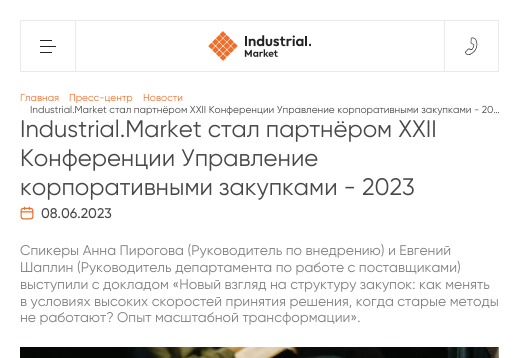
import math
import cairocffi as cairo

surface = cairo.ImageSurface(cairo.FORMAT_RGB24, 519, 358)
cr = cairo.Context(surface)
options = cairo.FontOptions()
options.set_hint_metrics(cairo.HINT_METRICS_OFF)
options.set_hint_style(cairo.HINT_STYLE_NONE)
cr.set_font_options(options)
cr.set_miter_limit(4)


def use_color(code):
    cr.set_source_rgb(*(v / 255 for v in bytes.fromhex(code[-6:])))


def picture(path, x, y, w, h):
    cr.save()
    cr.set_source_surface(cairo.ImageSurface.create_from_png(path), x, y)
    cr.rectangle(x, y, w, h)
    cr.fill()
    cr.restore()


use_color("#ffffff")
cr.paint()
cr.rectangle(20.5, 20.5, 55, 51)
use_color("#e9e9e9")
cr.set_line_width(1)
cr.stroke()
use_color("#242424")
cr.rectangle(40, 40, 12, 1)
cr.fill()
cr.rectangle(40, 46, 16, 1)
cr.fill()
cr.rectangle(40, 52, 12, 1)
cr.fill()
use_color("#e9e9e9")
cr.rectangle(76, 20, 368, 1)
cr.fill()
cr.rectangle(76, 71, 368, 1)
cr.fill()
picture("img1.png", 208, 31, 103, 30)
cr.rectangle(498, 20, 1, 52)
cr.fill()
cr.new_path()
cr.move_to(444, 20)
cr.line_to(498, 20)
cr.line_to(498, 21)
cr.line_to(445, 21)
cr.close_path()
cr.move_to(498, 72)
cr.line_to(444, 72)
cr.line_to(445, 71)
cr.line_to(498, 71)
cr.close_path()
cr.fill()
cr.set_source_rgba(0.141, 0.141, 0.141, 0.1)
cr.new_path()
cr.move_to(444, 72)
cr.line_to(444, 20)
cr.line_to(445, 21)
cr.line_to(445, 71)
cr.close_path()
cr.fill()
picture("img2.png", 465, 37, 13, 18)
cr.select_font_face("Gilroy")
cr.set_font_size(10.1)
use_color("#ee6f2b")
cr.move_to(20, 101)
cr.show_text("Главная")
cr.move_to(69, 101)
cr.show_text("Пресс-центр")
cr.move_to(143, 101)
cr.show_text("Новости")
use_color("#484848")
cr.move_to(30, 113)
cr.show_text("Industrial.Market стал партнёром XXII Конференции Управление корпоративными закупками - 20…")
cr.set_font_size(23.9)
cr.move_to(20, 137)
cr.show_text("Industrial.Market стал партнёром XXII")
cr.move_to(20, 166)
cr.show_text("Конференции Управление")
cr.move_to(20, 195)
cr.show_text("корпоративными закупками - 2023")
picture("img3.png", 20, 206, 14, 14)
cr.select_font_face("Gilroy Medium")
cr.set_font_size(14)
cr.move_to(41, 218)
cr.show_text("08.06.2023")
cr.select_font_face("Gilroy")
use_color("#7f7f7f")
cr.move_to(20, 255)
cr.show_text("Спикеры Анна Пирогова (Руководитель по внедрению) и Евгений")
cr.move_to(20, 272)
cr.show_text("Шаплин (Руководитель департамента по работе с поставщиками)")
cr.move_to(20, 289)
cr.show_text("выступили с докладом «Новый взгляд на структуру закупок: как менять")
cr.move_to(20, 306)
cr.show_text("в условиях высоких скоростей принятия решения, когда старые методы")
cr.move_to(20, 322)
cr.show_text("не работают? Опыт масштабной трансформации».")
picture("img4.png", 20, 347, 479, 11)
surface.write_to_png("result.png")
